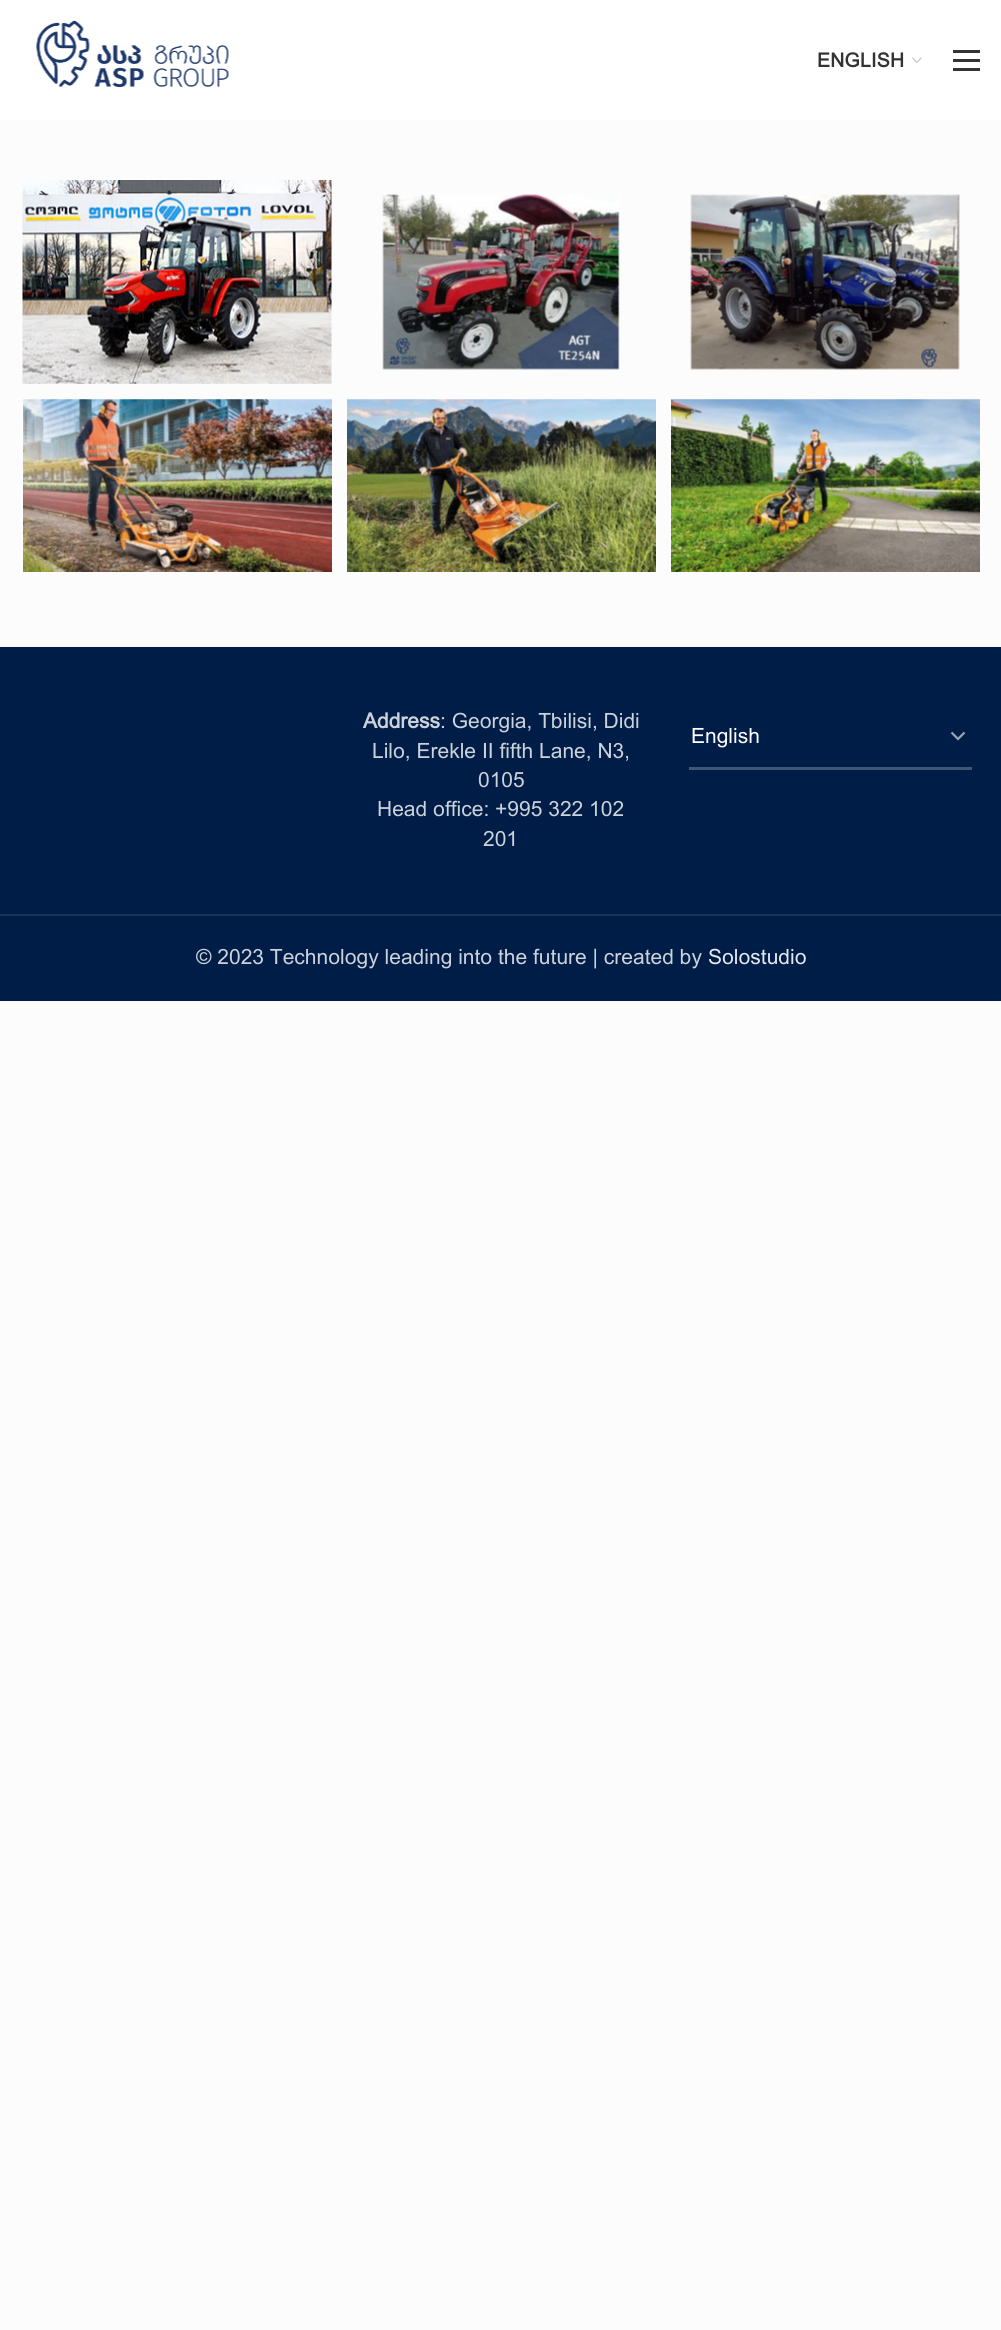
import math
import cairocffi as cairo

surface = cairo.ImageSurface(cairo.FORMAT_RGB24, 1001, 2330)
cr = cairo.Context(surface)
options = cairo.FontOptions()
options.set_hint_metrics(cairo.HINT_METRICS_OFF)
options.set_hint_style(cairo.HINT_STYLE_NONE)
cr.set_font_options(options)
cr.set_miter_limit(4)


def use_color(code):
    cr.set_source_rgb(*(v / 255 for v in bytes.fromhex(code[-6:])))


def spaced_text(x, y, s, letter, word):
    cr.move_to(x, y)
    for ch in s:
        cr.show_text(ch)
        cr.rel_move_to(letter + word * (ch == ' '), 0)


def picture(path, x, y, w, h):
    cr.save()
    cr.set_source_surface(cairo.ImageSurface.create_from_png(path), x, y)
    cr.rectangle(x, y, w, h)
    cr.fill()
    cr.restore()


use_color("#fcfcfc")
cr.paint()
use_color("#ffffff")
cr.rectangle(0, 0, 1001, 120)
cr.fill()
picture("img1.png", 36, 20, 193, 67)
cr.select_font_face("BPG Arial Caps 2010", cairo.FONT_SLANT_NORMAL, cairo.FONT_WEIGHT_BOLD)
cr.set_font_size(19.5)
use_color("#333333")
spaced_text(817, 67, "ENGLISH", 0.25, 0)
picture("img2.png", 912, 57, 10, 6)
cr.rectangle(953, 59, 27, 3)
cr.fill()
cr.rectangle(953, 50, 27, 3)
cr.fill()
cr.rectangle(953, 68, 27, 3)
cr.fill()
picture("img3.png", 22, 180, 310, 204)
picture("img4.png", 382, 194, 238, 176)
picture("img5.png", 690, 194, 270, 176)
picture("img6.png", 23, 399, 309, 173)
picture("img7.png", 347, 399, 309, 173)
picture("img8.png", 671, 399, 309, 173)
use_color("#001d47")
cr.rectangle(0, 647, 1001, 354)
cr.fill()
cr.select_font_face("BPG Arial", cairo.FONT_SLANT_NORMAL, cairo.FONT_WEIGHT_BOLD)
cr.set_font_size(21)
use_color("#ccd2da")
cr.move_to(363, 728)
cr.show_text("Address")
cr.select_font_face("BPG Arial")
cr.move_to(440, 728)
cr.show_text(": Georgia, Tbilisi, Didi")
cr.move_to(372, 758)
cr.show_text("Lilo, Erekle II fifth Lane, N3,")
cr.move_to(478, 787)
cr.show_text("0105")
cr.move_to(377, 816)
cr.show_text("Head office: +995 322 102")
cr.move_to(483, 846)
cr.show_text("201")
cr.new_path()
cr.move_to(951.5, 732.5)
cr.line_to(958, 739)
cr.line_to(964.5, 732.5)
use_color("#99a5b5")
cr.set_line_width(2.2)
cr.stroke()
use_color("#405675")
cr.rectangle(689, 767, 283, 3)
cr.fill()
use_color("#ffffff")
cr.move_to(691, 743)
cr.show_text("English")
use_color("#1a3459")
cr.rectangle(0, 914, 1001, 2)
cr.fill()
use_color("#ccd2da")
cr.move_to(196, 964)
cr.show_text("© 2023 Technology leading into the future | created by")
use_color("#e6e8ed")
cr.move_to(708, 964)
cr.show_text("Solostudio")
surface.write_to_png("result.png")
